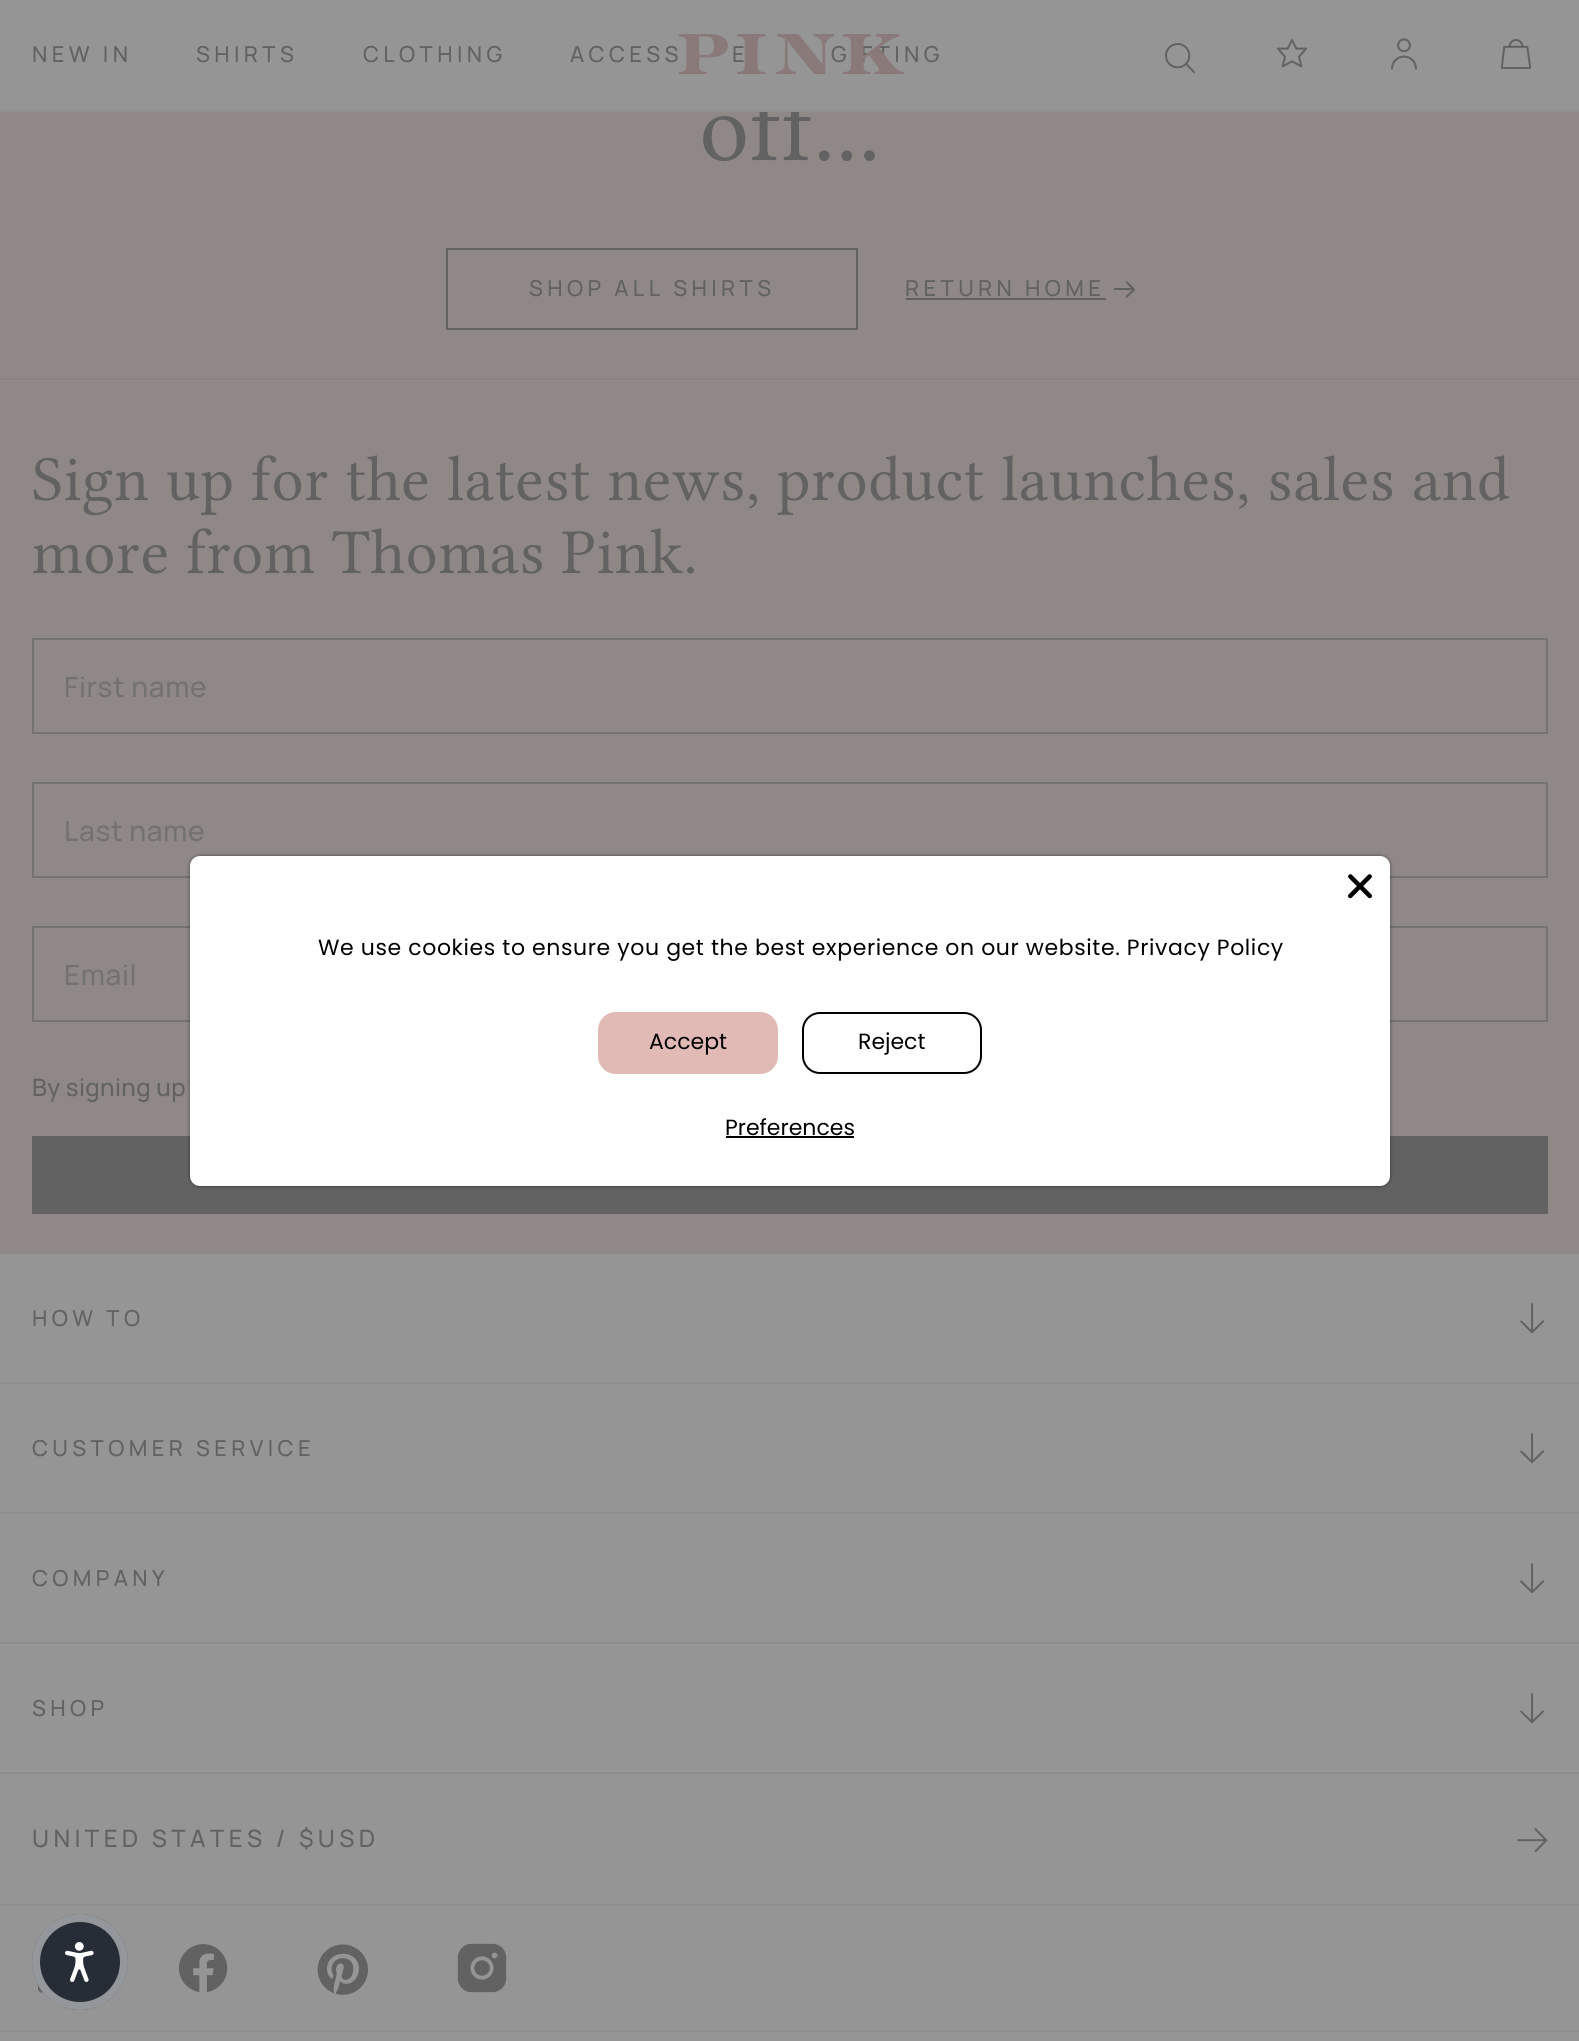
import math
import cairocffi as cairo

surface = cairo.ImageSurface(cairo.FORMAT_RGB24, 1579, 2041)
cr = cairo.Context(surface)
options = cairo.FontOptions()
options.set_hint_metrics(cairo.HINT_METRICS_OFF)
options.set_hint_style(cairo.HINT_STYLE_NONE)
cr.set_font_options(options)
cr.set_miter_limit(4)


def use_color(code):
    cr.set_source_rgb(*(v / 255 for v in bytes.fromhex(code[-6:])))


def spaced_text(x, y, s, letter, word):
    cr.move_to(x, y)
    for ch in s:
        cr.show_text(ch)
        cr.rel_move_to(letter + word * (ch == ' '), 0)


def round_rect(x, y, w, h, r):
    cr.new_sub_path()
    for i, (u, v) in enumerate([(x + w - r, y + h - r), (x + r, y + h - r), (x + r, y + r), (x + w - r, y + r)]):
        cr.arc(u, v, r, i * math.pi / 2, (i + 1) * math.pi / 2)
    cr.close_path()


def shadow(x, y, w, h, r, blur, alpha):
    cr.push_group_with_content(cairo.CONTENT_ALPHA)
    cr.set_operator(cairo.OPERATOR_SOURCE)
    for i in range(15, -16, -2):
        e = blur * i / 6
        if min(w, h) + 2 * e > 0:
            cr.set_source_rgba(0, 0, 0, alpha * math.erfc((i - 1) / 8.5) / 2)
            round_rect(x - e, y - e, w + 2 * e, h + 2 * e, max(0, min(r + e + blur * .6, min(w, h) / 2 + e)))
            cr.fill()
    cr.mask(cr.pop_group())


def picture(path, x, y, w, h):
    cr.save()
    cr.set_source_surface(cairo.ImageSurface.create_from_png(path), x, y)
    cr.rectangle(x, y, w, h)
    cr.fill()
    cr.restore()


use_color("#8f8887")
cr.paint()
cr.select_font_face("Libertinus Serif")
cr.set_font_size(100)
use_color("#626262")
spaced_text(699, 160, "off...", 0.6, 0)
use_color("#959595")
cr.rectangle(0, 0, 1579, 110)
cr.fill()
use_color("#909090")
cr.rectangle(0, 110, 1579, 2)
cr.fill()
cr.select_font_face("Manrope Medium")
cr.set_font_size(22)
use_color("#626262")
spaced_text(732, 62, "E", 4.4, 0)
spaced_text(831, 62, "GIFTING", 4.4, 0)
picture("img1.png", 679, 34, 225, 40)
picture("img2.png", 1165, 43, 30, 30)
picture("img3.png", 1277, 39, 30, 29)
picture("img4.png", 1391, 38, 26, 32)
picture("img5.png", 1500, 39, 32, 30)
spaced_text(32, 62, "NEW IN", 4.4, 0)
spaced_text(196, 62, "SHIRTS", 4.4, 0)
spaced_text(363, 62, "CLOTHING", 4.4, 0)
spaced_text(570, 62, "ACCESS", 4.4, 0)
cr.rectangle(447, 249, 410, 80)
cr.stroke()
spaced_text(529, 296, "SHOP ALL SHIRTS", 4.4, 0)
spaced_text(905, 296, "RETURN HOME", 4.4, 0)
cr.rectangle(906, 298, 200, 2)
cr.fill()
cr.rectangle(1114, 288, 20, 2)
cr.fill()
cr.new_path()
cr.move_to(1127, 281)
cr.line_to(1135, 289)
cr.line_to(1133.5, 290.5)
cr.line_to(1125.5, 282.5)
cr.close_path()
cr.fill()
cr.new_path()
cr.move_to(1125.5, 296.5)
cr.line_to(1133.5, 288.5)
cr.line_to(1135, 290)
cr.line_to(1127, 298)
cr.close_path()
cr.fill()
use_color("#898281")
cr.rectangle(0, 378, 1579, 2)
cr.fill()
cr.select_font_face("Libertinus Serif")
cr.set_font_size(64)
use_color("#626262")
spaced_text(32, 500, "Sign up for the latest news, product launches, sales and", 0.6, 0)
spaced_text(32, 573, "more from Thomas Pink.", 0.6, 0)
cr.rectangle(33, 639, 1514, 94)
use_color("#747171")
cr.stroke()
cr.select_font_face("Manrope Medium")
cr.set_font_size(28)
spaced_text(64, 697, "First name", 0.6, 0)
cr.rectangle(33, 783, 1514, 94)
cr.stroke()
spaced_text(64, 841, "Last name", 0.6, 0)
cr.rectangle(33, 927, 1514, 94)
cr.stroke()
spaced_text(64, 985, "Email", 0.6, 0)
cr.set_font_size(24)
use_color("#626262")
spaced_text(32, 1096, "By signing up", 0.4, 0)
cr.rectangle(32, 1136, 1516, 78)
cr.fill()
use_color("#959595")
cr.rectangle(0, 1254, 1579, 787)
cr.fill()
use_color("#8e8e8e")
cr.rectangle(0, 1382, 1579, 2)
cr.fill()
cr.set_font_size(22)
use_color("#626262")
spaced_text(32, 1326, "HOW TO", 4.4, 0)
picture("img6.png", 1520, 1303, 25, 31)
use_color("#8e8e8e")
cr.rectangle(0, 1512, 1579, 2)
cr.fill()
use_color("#626262")
spaced_text(32, 1456, "CUSTOMER SERVICE", 4.4, 0)
picture("img6.png", 1520, 1433, 25, 31)
use_color("#8e8e8e")
cr.rectangle(0, 1642, 1579, 2)
cr.fill()
use_color("#626262")
spaced_text(32, 1586, "COMPANY", 4.4, 0)
picture("img6.png", 1520, 1563, 25, 31)
use_color("#8e8e8e")
cr.rectangle(0, 1772, 1579, 2)
cr.fill()
use_color("#626262")
spaced_text(32, 1716, "SHOP", 4.4, 0)
picture("img6.png", 1520, 1693, 25, 31)
use_color("#8e8e8e")
cr.rectangle(0, 1904, 1579, 2)
cr.fill()
cr.set_font_size(24)
use_color("#626262")
spaced_text(32, 1847, "UNITED STATES / $USD", 4.4, 0)
picture("img7.png", 1517, 1828, 31, 25)
use_color("#8e8e8e")
cr.rectangle(0, 2030, 1579, 2)
cr.fill()
picture("img8.png", 38, 1985, 6, 8)
picture("img9.png", 179, 1944, 49, 48)
picture("img10.png", 317, 1944, 51, 51)
picture("img11.png", 457, 1943, 50, 50)
use_color("#000000")
shadow(190, 856, 1200, 330, 10, 2, 0.5)
use_color("#ffffff")
round_rect(190, 856, 1200, 330, 10)
cr.fill()
picture("img12.png", 1348, 874, 24, 25)
cr.select_font_face("Poppins")
cr.set_font_size(22)
use_color("#000000")
spaced_text(318, 955, "We use cookies to ensure you get the best experience on our website. Privacy Policy", 0.6, 0)
use_color("#e1bab6")
round_rect(598, 1012, 180, 62, 18)
cr.fill()
use_color("#000000")
cr.move_to(649, 1049)
cr.show_text("Accept")
round_rect(803, 1013, 178, 60, 17)
cr.stroke()
cr.move_to(858, 1049)
cr.show_text("Reject")
cr.move_to(725, 1135)
cr.show_text("Preferences")
cr.rectangle(726, 1136, 128, 2)
cr.fill()
use_color("#272d36")
cr.arc(80, 1962, 48, 0, 2 * math.pi)
cr.fill()
cr.arc(80, 1962, 44, 0, 2 * math.pi)
cr.set_source_rgba(1, 1, 1, 0.5)
cr.set_line_width(8)
cr.stroke()
picture("img13.png", 65, 1942, 29, 40)
surface.write_to_png("result.png")
